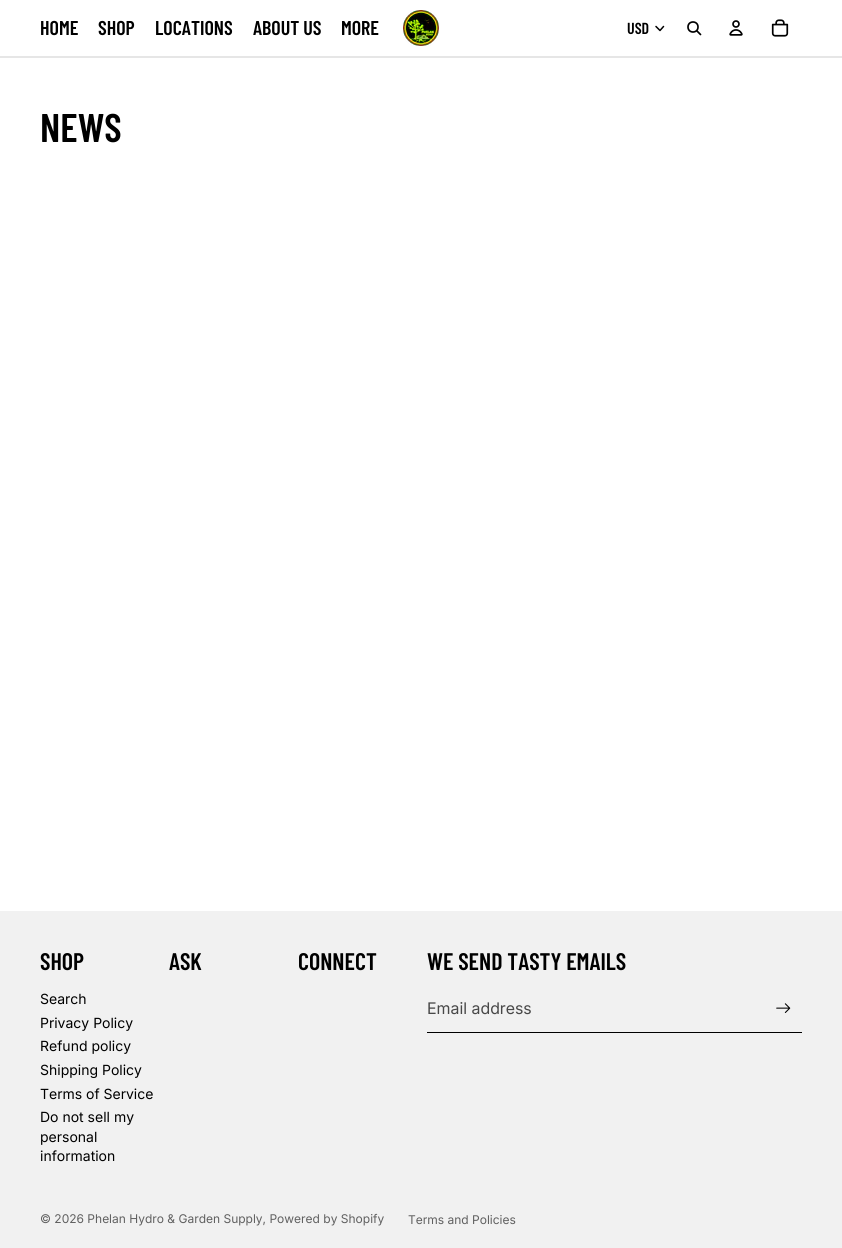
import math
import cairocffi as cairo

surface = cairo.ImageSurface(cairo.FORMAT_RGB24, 842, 1248)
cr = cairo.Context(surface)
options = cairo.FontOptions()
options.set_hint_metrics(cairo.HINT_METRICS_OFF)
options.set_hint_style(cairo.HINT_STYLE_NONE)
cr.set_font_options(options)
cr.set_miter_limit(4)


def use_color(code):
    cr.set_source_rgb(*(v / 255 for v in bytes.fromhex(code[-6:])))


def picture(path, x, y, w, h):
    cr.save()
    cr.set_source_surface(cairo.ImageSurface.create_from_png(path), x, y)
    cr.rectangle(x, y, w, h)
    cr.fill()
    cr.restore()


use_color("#ffffff")
cr.paint()
use_color("#e6e6e6")
cr.rectangle(0, 56, 842, 2)
cr.fill()
cr.select_font_face("Barlow Condensed SemiBold")
cr.set_font_size(20)
use_color("#000000")
cr.move_to(40, 35)
cr.show_text("HOME")
cr.move_to(98, 35)
cr.show_text("SHOP")
cr.move_to(155, 35)
cr.show_text("LOCATIONS")
cr.move_to(253, 35)
cr.show_text("ABOUT US")
cr.move_to(341, 35)
cr.show_text("MORE")
picture("img1.png", 403, 10, 36, 36)
cr.set_font_size(16)
cr.move_to(627, 34)
cr.show_text("USD")
cr.new_path()
cr.move_to(663.5, 26.5)
cr.line_to(660, 30.5)
cr.line_to(656, 26.5)
cr.set_line_width(1.5)
cr.set_line_cap(cairo.LINE_CAP_ROUND)
cr.set_line_join(cairo.LINE_JOIN_ROUND)
cr.stroke()
cr.arc(693, 27, 5, 0, 2 * math.pi)
cr.set_line_width(1.7)
cr.set_line_cap(cairo.LINE_CAP_BUTT)
cr.set_line_join(cairo.LINE_JOIN_MITER)
cr.stroke()
cr.new_path()
cr.move_to(697, 31)
cr.line_to(700.5, 34.5)
cr.set_line_cap(cairo.LINE_CAP_ROUND)
cr.set_line_join(cairo.LINE_JOIN_ROUND)
cr.stroke()
picture("img2.png", 729, 20, 14, 16)
picture("img3.png", 771, 19, 18, 18)
cr.set_font_size(40)
cr.move_to(40, 142)
cr.show_text("NEWS")
use_color("#f1f1f1")
cr.rectangle(0, 911, 842, 337)
cr.fill()
cr.set_font_size(24)
use_color("#000000")
cr.move_to(40, 970)
cr.show_text("SHOP")
cr.select_font_face("Inter")
cr.set_font_size(14)
cr.move_to(40, 1004)
cr.show_text("Search")
cr.move_to(40, 1028)
cr.show_text("Privacy Policy")
cr.move_to(40, 1051)
cr.show_text("Refund policy")
cr.move_to(40, 1075)
cr.show_text("Shipping Policy")
cr.move_to(40, 1099)
cr.show_text("Terms of Service")
cr.move_to(40, 1122)
cr.show_text("Do not sell my")
cr.move_to(40, 1142)
cr.show_text("personal")
cr.move_to(40, 1161)
cr.show_text("information")
cr.select_font_face("Barlow Condensed SemiBold")
cr.set_font_size(24)
cr.move_to(169, 970)
cr.show_text("ASK")
cr.move_to(298, 970)
cr.show_text("CONNECT")
cr.move_to(427, 970)
cr.show_text("WE SEND TASTY EMAILS")
cr.rectangle(427, 1032, 375, 1)
cr.fill()
cr.select_font_face("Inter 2")
cr.set_font_size(16)
use_color("#484848")
cr.move_to(427, 1014)
cr.show_text("Email address")
picture("img4.png", 776, 1003, 15, 10)
cr.select_font_face("Inter")
cr.set_font_size(12)
use_color("#606060")
cr.move_to(40, 1223)
cr.show_text("© 2026 Phelan Hydro & Garden Supply, Powered by Shopify")
cr.move_to(408, 1224)
cr.show_text("Terms and Policies")
surface.write_to_png("result.png")
